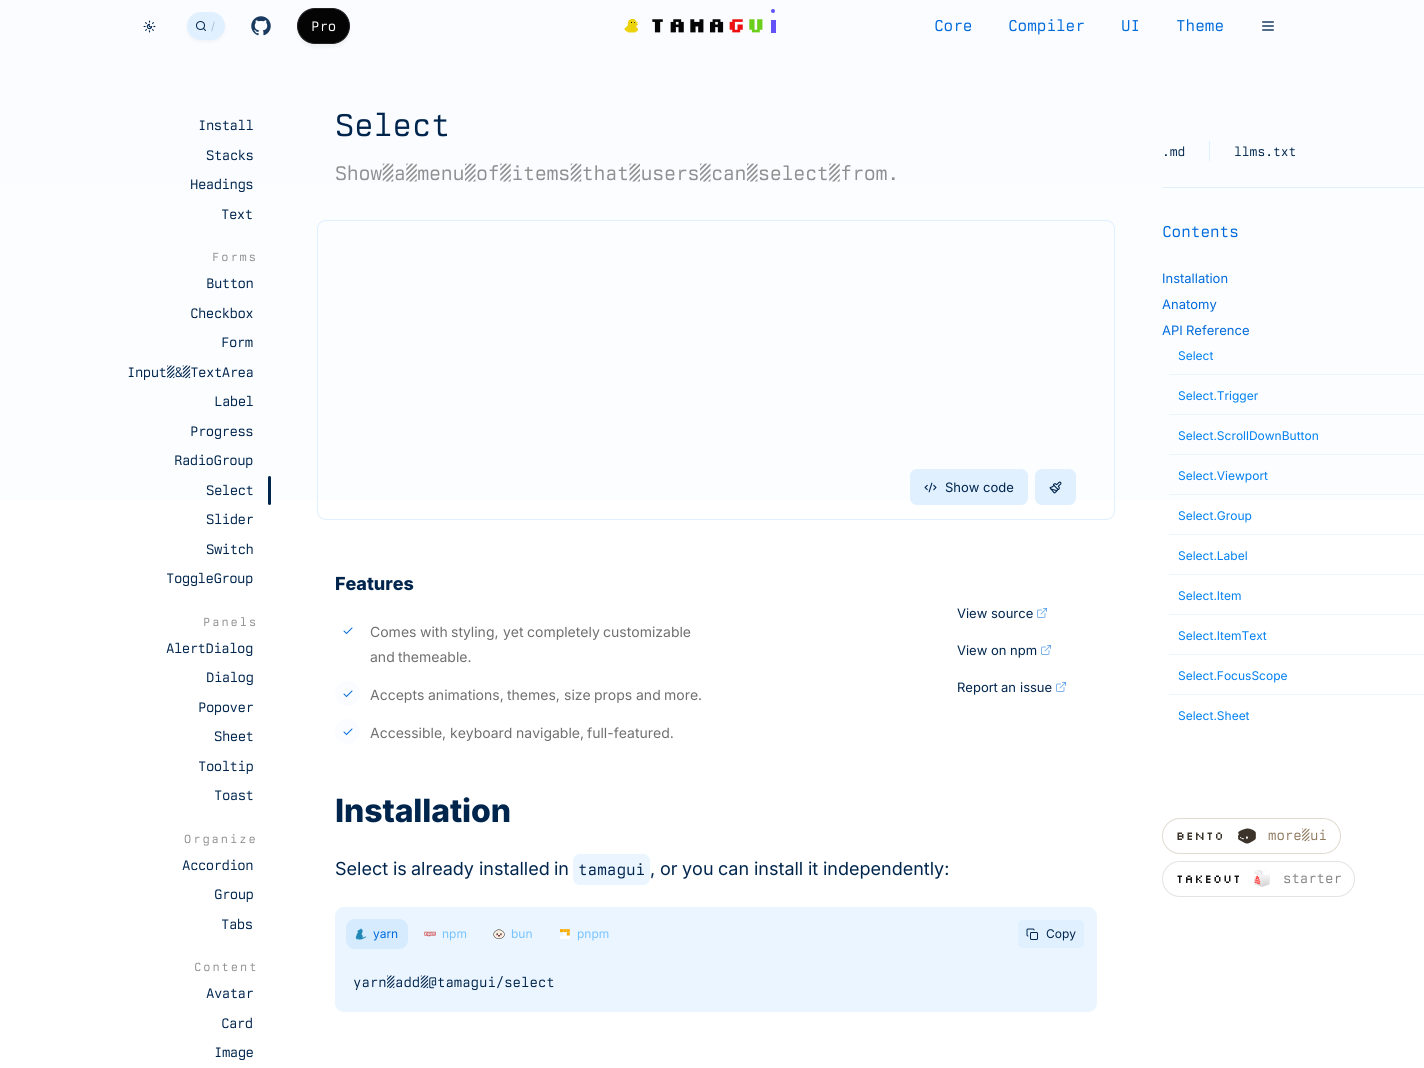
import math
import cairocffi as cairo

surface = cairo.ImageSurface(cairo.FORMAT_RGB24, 1424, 1068)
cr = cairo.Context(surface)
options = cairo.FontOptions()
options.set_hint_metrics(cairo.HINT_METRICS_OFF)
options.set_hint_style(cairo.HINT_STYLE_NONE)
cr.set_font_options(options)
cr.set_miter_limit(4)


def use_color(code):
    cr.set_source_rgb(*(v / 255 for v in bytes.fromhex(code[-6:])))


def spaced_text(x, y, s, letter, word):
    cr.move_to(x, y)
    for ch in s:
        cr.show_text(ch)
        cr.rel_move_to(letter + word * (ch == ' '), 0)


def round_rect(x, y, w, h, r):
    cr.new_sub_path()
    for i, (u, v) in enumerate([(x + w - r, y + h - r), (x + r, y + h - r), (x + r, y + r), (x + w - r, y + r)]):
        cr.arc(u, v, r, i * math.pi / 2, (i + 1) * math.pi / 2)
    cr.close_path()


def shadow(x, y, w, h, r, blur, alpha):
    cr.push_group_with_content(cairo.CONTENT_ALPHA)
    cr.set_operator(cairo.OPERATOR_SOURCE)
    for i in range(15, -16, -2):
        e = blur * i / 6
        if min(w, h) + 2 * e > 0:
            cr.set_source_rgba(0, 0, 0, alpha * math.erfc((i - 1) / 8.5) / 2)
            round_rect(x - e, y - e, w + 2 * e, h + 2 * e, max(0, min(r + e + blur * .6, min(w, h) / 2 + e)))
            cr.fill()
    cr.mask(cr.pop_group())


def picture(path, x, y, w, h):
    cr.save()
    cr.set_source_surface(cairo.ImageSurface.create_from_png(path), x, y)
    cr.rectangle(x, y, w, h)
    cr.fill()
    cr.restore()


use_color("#ffffff")
cr.paint()
gradient = cairo.LinearGradient(712, 0, 712, 1000)
gradient.add_color_stop_rgba(0, 0.98, 0.988, 1, 1)
gradient.add_color_stop_rgba(1, 1, 1, 1, 1)
cr.set_source(gradient)
cr.rectangle(0, 0, 1424, 500)
cr.fill()
picture("img1.png", 143, 20, 13, 13)
use_color("#000000")
shadow(187, 14, 38, 28, 14, 2, 0.04)
use_color("#e0f0ff")
round_rect(187, 12, 38, 28, 14)
cr.fill()
cr.new_path()
cr.move_to(205.5, 30.5)
cr.line_to(203.5, 28.5)
use_color("#00254d")
cr.set_line_width(1)
cr.set_line_cap(cairo.LINE_CAP_ROUND)
cr.set_line_join(cairo.LINE_JOIN_ROUND)
cr.stroke()
cr.arc(200.5, 25.5, 4, 0, 2 * math.pi)
cr.set_line_cap(cairo.LINE_CAP_BUTT)
cr.set_line_join(cairo.LINE_JOIN_MITER)
cr.stroke()
cr.select_font_face("Inter")
cr.set_font_size(11)
use_color("#a8bdd3")
cr.move_to(211, 30)
cr.show_text("/")
picture("img2.png", 251, 16, 20, 20)
use_color("#000000")
shadow(297, 12, 53, 36, 18, 1.5, 0.04)
use_color("#040404")
round_rect(297.5, 8.5, 52, 35, 17.5)
cr.fill_preserve()
use_color("#222222")
cr.stroke()
cr.select_font_face("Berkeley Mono")
cr.set_font_size(14)
use_color("#ffffff")
cr.move_to(311, 31)
cr.show_text("Pro")
picture("img3.png", 624, 19, 14, 14)
use_color("#6252f8")
cr.arc(773, 11, 2, 0, 2 * math.pi)
cr.fill()
picture("img4.png", 652, 19, 124, 14)
cr.set_font_size(16)
use_color("#006adb")
cr.move_to(934, 31)
cr.show_text("Core")
cr.move_to(1008, 31)
cr.show_text("Compiler")
cr.move_to(1121, 31)
cr.show_text("UI")
cr.move_to(1176, 31)
cr.show_text("Theme")
picture("img5.png", 1262, 21, 12, 10)
cr.set_font_size(14)
use_color("#00254d")
spaced_text(198, 130, "Install", -0.5, 0)
spaced_text(206, 160, "Stacks", -0.5, 0)
spaced_text(190, 189, "Headings", -0.5, 0)
spaced_text(221, 219, "Text", -0.5, 0)
cr.set_font_size(12)
use_color("#8f8f8f")
spaced_text(212, 261, "Forms", 2, 0)
cr.set_font_size(14)
use_color("#00254d")
spaced_text(206, 288, "Button", -0.5, 0)
spaced_text(190, 318, "Checkbox", -0.5, 0)
spaced_text(221, 347, "Form", -0.5, 0)
spaced_text(127, 377, "Input & TextArea", -0.5, 0)
spaced_text(214, 406, "Label", -0.5, 0)
spaced_text(190, 436, "Progress", -0.5, 0)
spaced_text(174, 465, "RadioGroup", -0.5, 0)
spaced_text(206, 495, "Select", -0.5, 0)
round_rect(268, 476, 3, 29, 1.5)
cr.fill()
spaced_text(206, 524, "Slider", -0.5, 0)
spaced_text(206, 554, "Switch", -0.5, 0)
spaced_text(166, 583, "ToggleGroup", -0.5, 0)
cr.set_font_size(12)
use_color("#8f8f8f")
spaced_text(203, 626, "Panels", 2, 0)
cr.set_font_size(14)
use_color("#00254d")
spaced_text(166, 653, "AlertDialog", -0.5, 0)
spaced_text(206, 682, "Dialog", -0.5, 0)
spaced_text(198, 712, "Popover", -0.5, 0)
spaced_text(214, 741, "Sheet", -0.5, 0)
spaced_text(198, 771, "Tooltip", -0.5, 0)
spaced_text(214, 800, "Toast", -0.5, 0)
cr.set_font_size(12)
use_color("#8f8f8f")
spaced_text(184, 843, "Organize", 2, 0)
cr.set_font_size(14)
use_color("#00254d")
spaced_text(182, 870, "Accordion", -0.5, 0)
spaced_text(214, 899, "Group", -0.5, 0)
spaced_text(221, 929, "Tabs", -0.5, 0)
cr.set_font_size(12)
use_color("#8f8f8f")
spaced_text(194, 971, "Content", 2, 0)
cr.set_font_size(14)
use_color("#00254d")
spaced_text(206, 998, "Avatar", -0.5, 0)
spaced_text(221, 1028, "Card", -0.5, 0)
spaced_text(214, 1057, "Image", -0.5, 0)
cr.set_font_size(32)
cr.move_to(335, 136)
cr.show_text("Select")
cr.set_font_size(20)
use_color("#8f8f8f")
spaced_text(335, 180, "Show a menu of items that users can select from.", -0.25, 0)
cr.set_font_size(13)
use_color("#00254d")
cr.move_to(1162, 156)
cr.show_text(".md")
use_color("#e0f0ff")
cr.rectangle(1209, 141, 1, 20)
cr.fill()
use_color("#00254d")
cr.move_to(1234, 156)
cr.show_text("llms.txt")
use_color("#e0f0ff")
cr.rectangle(1162, 187, 262, 1)
cr.fill()
cr.set_font_size(16)
use_color("#006adb")
cr.move_to(1162, 237)
cr.show_text("Contents")
cr.select_font_face("Inter")
cr.set_font_size(13)
cr.move_to(1162, 283)
cr.show_text("Installation")
cr.move_to(1162, 309)
cr.show_text("Anatomy")
cr.move_to(1162, 335)
cr.show_text("API")
cr.move_to(1186, 335)
cr.show_text("Reference")
cr.set_font_size(12)
use_color("#0080f0")
cr.move_to(1178, 360)
cr.show_text("Select")
use_color("#ebf5ff")
cr.rectangle(1169, 374, 255, 1)
cr.fill()
use_color("#0080f0")
cr.move_to(1178, 400)
cr.show_text("Select.Trigger")
use_color("#ebf5ff")
cr.rectangle(1169, 414, 255, 1)
cr.fill()
use_color("#0080f0")
cr.move_to(1178, 440)
cr.show_text("Select.ScrollDownButton")
use_color("#ebf5ff")
cr.rectangle(1169, 454, 255, 1)
cr.fill()
use_color("#0080f0")
cr.move_to(1178, 480)
cr.show_text("Select.Viewport")
use_color("#ebf5ff")
cr.rectangle(1169, 494, 255, 1)
cr.fill()
use_color("#0080f0")
cr.move_to(1178, 520)
cr.show_text("Select.Group")
use_color("#ecf6ff")
cr.rectangle(1169, 534, 255, 1)
cr.fill()
use_color("#0080f0")
cr.move_to(1178, 560)
cr.show_text("Select.Label")
use_color("#ecf6ff")
cr.rectangle(1169, 574, 255, 1)
cr.fill()
use_color("#0080f0")
cr.move_to(1178, 600)
cr.show_text("Select.Item")
use_color("#ecf6ff")
cr.rectangle(1169, 614, 255, 1)
cr.fill()
use_color("#0080f0")
cr.move_to(1178, 640)
cr.show_text("Select.ItemText")
use_color("#ecf6ff")
cr.rectangle(1169, 654, 255, 1)
cr.fill()
use_color("#0080f0")
cr.move_to(1178, 680)
cr.show_text("Select.FocusScope")
use_color("#ecf6ff")
cr.rectangle(1169, 694, 255, 1)
cr.fill()
use_color("#0080f0")
cr.move_to(1178, 720)
cr.show_text("Select.Sheet")
round_rect(1162.5, 818.5, 178, 35, 17.5)
use_color("#e0dad1")
cr.stroke()
cr.select_font_face("Silkscreen")
use_color("#3c342a")
spaced_text(1176, 840, "Bento", 1, 0)
picture("img6.png", 1238, 828, 18, 16)
cr.select_font_face("Berkeley Mono")
cr.set_font_size(14)
use_color("#8f7b61")
cr.move_to(1268, 840)
cr.show_text("more ui")
round_rect(1162.5, 861.5, 192, 35, 17.5)
use_color("#e3e3e3")
cr.stroke()
cr.select_font_face("Silkscreen")
cr.set_font_size(12)
use_color("#171717")
spaced_text(1176, 883, "Takeout", 1, 0)
picture("img7.png", 1254, 870, 16, 17)
cr.select_font_face("Berkeley Mono")
cr.set_font_size(14)
use_color("#858585")
cr.move_to(1283, 883)
cr.show_text("starter")
round_rect(317.5, 220.5, 797, 299, 8.5)
use_color("#e0f0ff")
cr.stroke()
round_rect(910, 469, 118, 36, 7)
cr.fill()
picture("img8.png", 924, 482, 13, 11)
cr.select_font_face("Inter")
cr.set_font_size(13)
use_color("#00254d")
cr.move_to(945, 492)
cr.show_text("Show")
cr.move_to(983, 492)
cr.show_text("code")
use_color("#e0f0ff")
round_rect(1035, 469, 41, 36, 7)
cr.fill()
picture("img9.png", 1049, 481, 13, 13)
cr.select_font_face("Inter ExtraBold")
cr.set_font_size(18)
use_color("#00254d")
cr.move_to(335, 590)
cr.show_text("Features")
cr.new_path()
cr.move_to(352, 628)
cr.line_to(346.5, 633.5)
cr.line_to(344, 631)
use_color("#006adb")
cr.set_line_cap(cairo.LINE_CAP_ROUND)
cr.set_line_join(cairo.LINE_JOIN_ROUND)
cr.stroke()
cr.select_font_face("Inter")
cr.set_font_size(14)
use_color("#6f6f6f")
cr.move_to(370, 637)
cr.show_text("Comes")
cr.move_to(420, 637)
cr.show_text("with")
cr.move_to(451, 637)
cr.show_text("styling,")
cr.move_to(503, 637)
cr.show_text("yet")
cr.move_to(527, 637)
cr.show_text("completely")
cr.move_to(603, 637)
cr.show_text("customizable")
cr.move_to(370, 662)
cr.show_text("and")
cr.move_to(398, 662)
cr.show_text("themeable.")
use_color("#fbfcff")
cr.new_path()
cr.arc(347.5, 693.5, 12.5, 0, 2 * math.pi)
cr.fill()
cr.new_path()
cr.move_to(352, 691)
cr.line_to(346.5, 696.5)
cr.line_to(344, 694)
use_color("#006adb")
cr.stroke()
use_color("#6f6f6f")
cr.move_to(370, 700)
cr.show_text("Accepts")
cr.move_to(428, 700)
cr.show_text("animations,")
cr.move_to(507, 700)
cr.show_text("themes,")
cr.move_to(564, 700)
cr.show_text("size")
cr.move_to(594, 700)
cr.show_text("props")
cr.move_to(636, 700)
cr.show_text("and")
cr.move_to(664, 700)
cr.show_text("more.")
use_color("#fbfcff")
cr.new_path()
cr.arc(347.5, 731.5, 12.5, 0, 2 * math.pi)
cr.fill()
cr.new_path()
cr.move_to(352, 729)
cr.line_to(346.5, 734.5)
cr.line_to(344, 732)
use_color("#006adb")
cr.stroke()
use_color("#6f6f6f")
cr.move_to(370, 738)
cr.show_text("Accessible,")
cr.move_to(450, 738)
cr.show_text("keyboard")
cr.move_to(516, 738)
cr.show_text("navigable,")
cr.move_to(587, 738)
cr.show_text("full-featured.")
cr.set_font_size(13)
use_color("#00254d")
cr.move_to(957, 618)
cr.show_text("View")
cr.move_to(991, 618)
cr.show_text("source")
picture("img10.png", 1037, 608, 10, 10)
cr.move_to(957, 655)
cr.show_text("View")
cr.move_to(991, 655)
cr.show_text("on")
cr.move_to(1010, 655)
cr.show_text("npm")
picture("img10.png", 1041, 645, 10, 10)
cr.move_to(957, 692)
cr.show_text("Report")
cr.move_to(1001, 692)
cr.show_text("an")
cr.move_to(1020, 692)
cr.show_text("issue")
picture("img10.png", 1056, 682, 10, 10)
cr.select_font_face("Inter ExtraBold")
cr.set_font_size(32)
spaced_text(335, 822, "Installation", -0.1, 0)
cr.select_font_face("Inter")
cr.set_font_size(18)
cr.move_to(335, 875)
cr.show_text("Select")
cr.move_to(393, 875)
cr.show_text("is")
cr.move_to(411, 875)
cr.show_text("already")
cr.move_to(479, 875)
cr.show_text("installed")
cr.move_to(554, 875)
cr.show_text("in")
use_color("#ebf5ff")
round_rect(573, 854, 77, 31, 7)
cr.fill()
cr.select_font_face("Berkeley Mono")
cr.set_font_size(16)
use_color("#00254d")
cr.move_to(578, 875)
cr.show_text("tamagui")
cr.select_font_face("Inter")
cr.set_font_size(18)
cr.move_to(650, 875)
cr.show_text(",")
cr.move_to(660, 875)
cr.show_text("or")
cr.move_to(682, 875)
cr.show_text("you")
cr.move_to(718, 875)
cr.show_text("can")
cr.move_to(754, 875)
cr.show_text("install")
cr.move_to(808, 875)
cr.show_text("it")
cr.move_to(823, 875)
cr.show_text("independently:")
use_color("#ebf5ff")
round_rect(335, 907, 762, 105, 9)
cr.fill()
use_color("#d6ebfe")
round_rect(346, 919, 62, 30, 9)
cr.fill()
picture("img11.png", 355, 928, 12, 12)
cr.set_font_size(12)
use_color("#006adb")
cr.move_to(373, 938)
cr.show_text("yarn")
picture("img12.png", 424, 931, 12, 6)
use_color("#76c3ff")
cr.move_to(442, 938)
cr.show_text("npm")
picture("img13.png", 493, 929, 12, 10)
cr.move_to(511, 938)
cr.show_text("bun")
picture("img14.png", 559, 929, 11, 10)
cr.move_to(577, 938)
cr.show_text("pnpm")
cr.select_font_face("Berkeley Mono")
cr.set_font_size(14)
use_color("#00254d")
cr.move_to(353, 987)
cr.show_text("yarn add @tamagui/select")
use_color("#e0f0ff")
round_rect(1018, 920, 66, 28, 5)
cr.fill()
picture("img15.png", 1026, 928, 12, 12)
cr.select_font_face("Inter")
cr.set_font_size(12)
use_color("#00254d")
cr.move_to(1046, 938)
cr.show_text("Copy")
surface.write_to_png("result.png")
